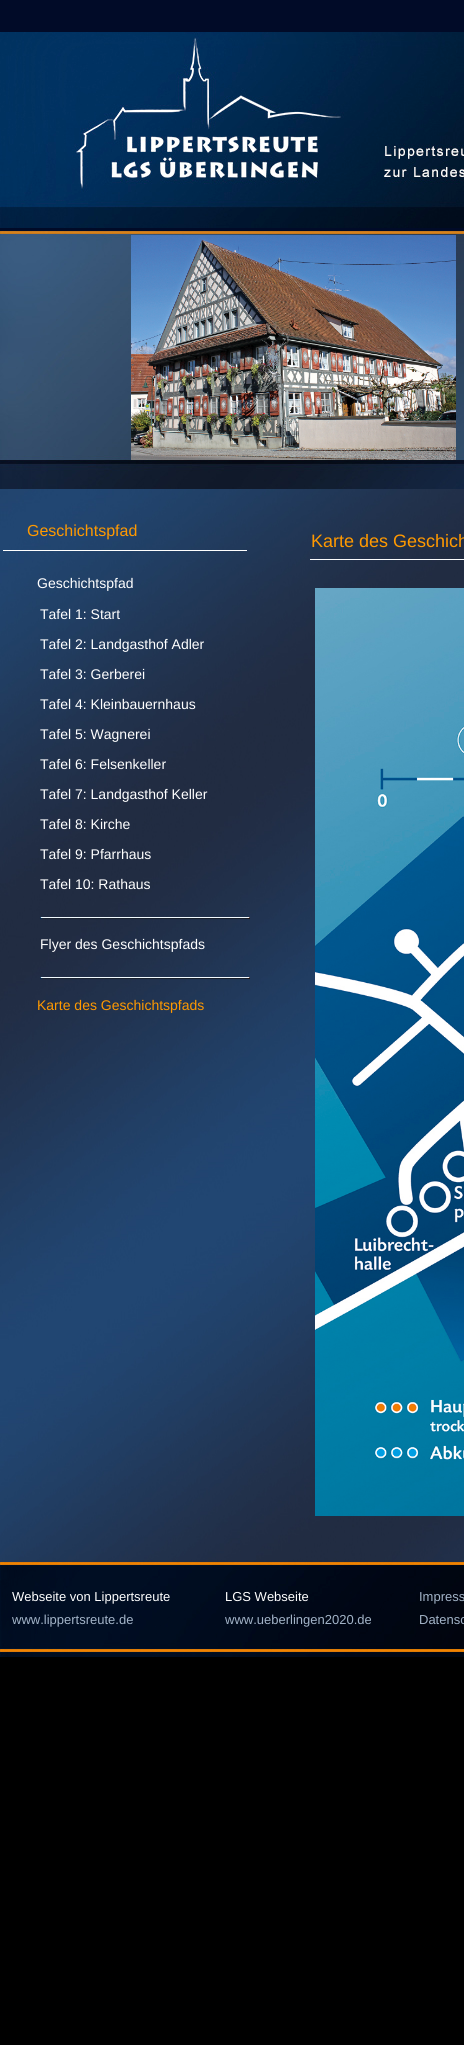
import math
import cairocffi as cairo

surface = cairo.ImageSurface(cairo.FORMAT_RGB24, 464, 2045)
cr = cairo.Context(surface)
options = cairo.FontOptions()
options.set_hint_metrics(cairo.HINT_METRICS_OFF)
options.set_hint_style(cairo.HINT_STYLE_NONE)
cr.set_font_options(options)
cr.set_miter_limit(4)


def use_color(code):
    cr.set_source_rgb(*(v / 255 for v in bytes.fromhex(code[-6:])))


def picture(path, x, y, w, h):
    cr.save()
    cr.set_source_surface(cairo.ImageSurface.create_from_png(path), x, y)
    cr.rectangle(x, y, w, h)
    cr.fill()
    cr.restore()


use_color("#000000")
cr.paint()
use_color("#010b28")
cr.rectangle(0, 0, 464, 231)
cr.fill()
picture("img1.png", 0, 32, 464, 196)
picture("img2.png", 0, 489, 464, 1073)
picture("img3.png", 0, 231, 464, 258)
picture("img4.png", 131, 235, 325, 225)
use_color("#ffffff")
cr.rectangle(3, 550, 244, 1)
cr.fill()
cr.select_font_face("Liberation Sans")
cr.set_font_size(16)
use_color("#ff9900")
cr.move_to(27, 536)
cr.show_text("Geschichtspfad")
cr.set_font_size(14)
use_color("#ffffff")
cr.move_to(37, 588)
cr.show_text("Geschichtspfad")
cr.move_to(40, 619)
cr.show_text("Tafel 1: Start")
cr.move_to(40, 649)
cr.show_text("Tafel 2: Landgasthof Adler")
cr.move_to(40, 679)
cr.show_text("Tafel 3: Gerberei")
cr.move_to(40, 709)
cr.show_text("Tafel 4: Kleinbauernhaus")
cr.move_to(40, 739)
cr.show_text("Tafel 5: Wagnerei")
cr.move_to(40, 769)
cr.show_text("Tafel 6: Felsenkeller")
cr.move_to(40, 799)
cr.show_text("Tafel 7: Landgasthof Keller")
cr.move_to(40, 829)
cr.show_text("Tafel 8: Kirche")
cr.move_to(40, 859)
cr.show_text("Tafel 9: Pfarrhaus")
cr.move_to(40, 889)
cr.show_text("Tafel 10: Rathaus")
picture("img5.png", 40, 917, 210, 2)
cr.move_to(40, 949)
cr.show_text("Flyer des Geschichtspfads")
picture("img5.png", 40, 977, 210, 2)
use_color("#ff9900")
cr.move_to(37, 1010)
cr.show_text("Karte des Geschichtspfads")
use_color("#f9fafb")
cr.rectangle(310, 559, 154, 1)
cr.fill()
cr.set_font_size(18)
use_color("#ff9900")
cr.move_to(311, 547)
cr.show_text("Karte des Geschich")
picture("img6.png", 315, 588, 149, 928)
picture("img7.png", 0, 1562, 464, 95)
cr.set_font_size(13)
use_color("#ffffff")
cr.move_to(12, 1601)
cr.show_text("Webseite von Lippertsreute")
use_color("#a3b4c8")
cr.move_to(12, 1624)
cr.show_text("www.lippertsreute.de")
use_color("#ffffff")
cr.move_to(225, 1601)
cr.show_text("LGS Webseite")
use_color("#a3b4c8")
cr.move_to(225, 1624)
cr.show_text("www.ueberlingen2020.de")
cr.move_to(419, 1601)
cr.show_text("Impress")
cr.move_to(419, 1624)
cr.show_text("Datensc")
surface.write_to_png("result.png")
